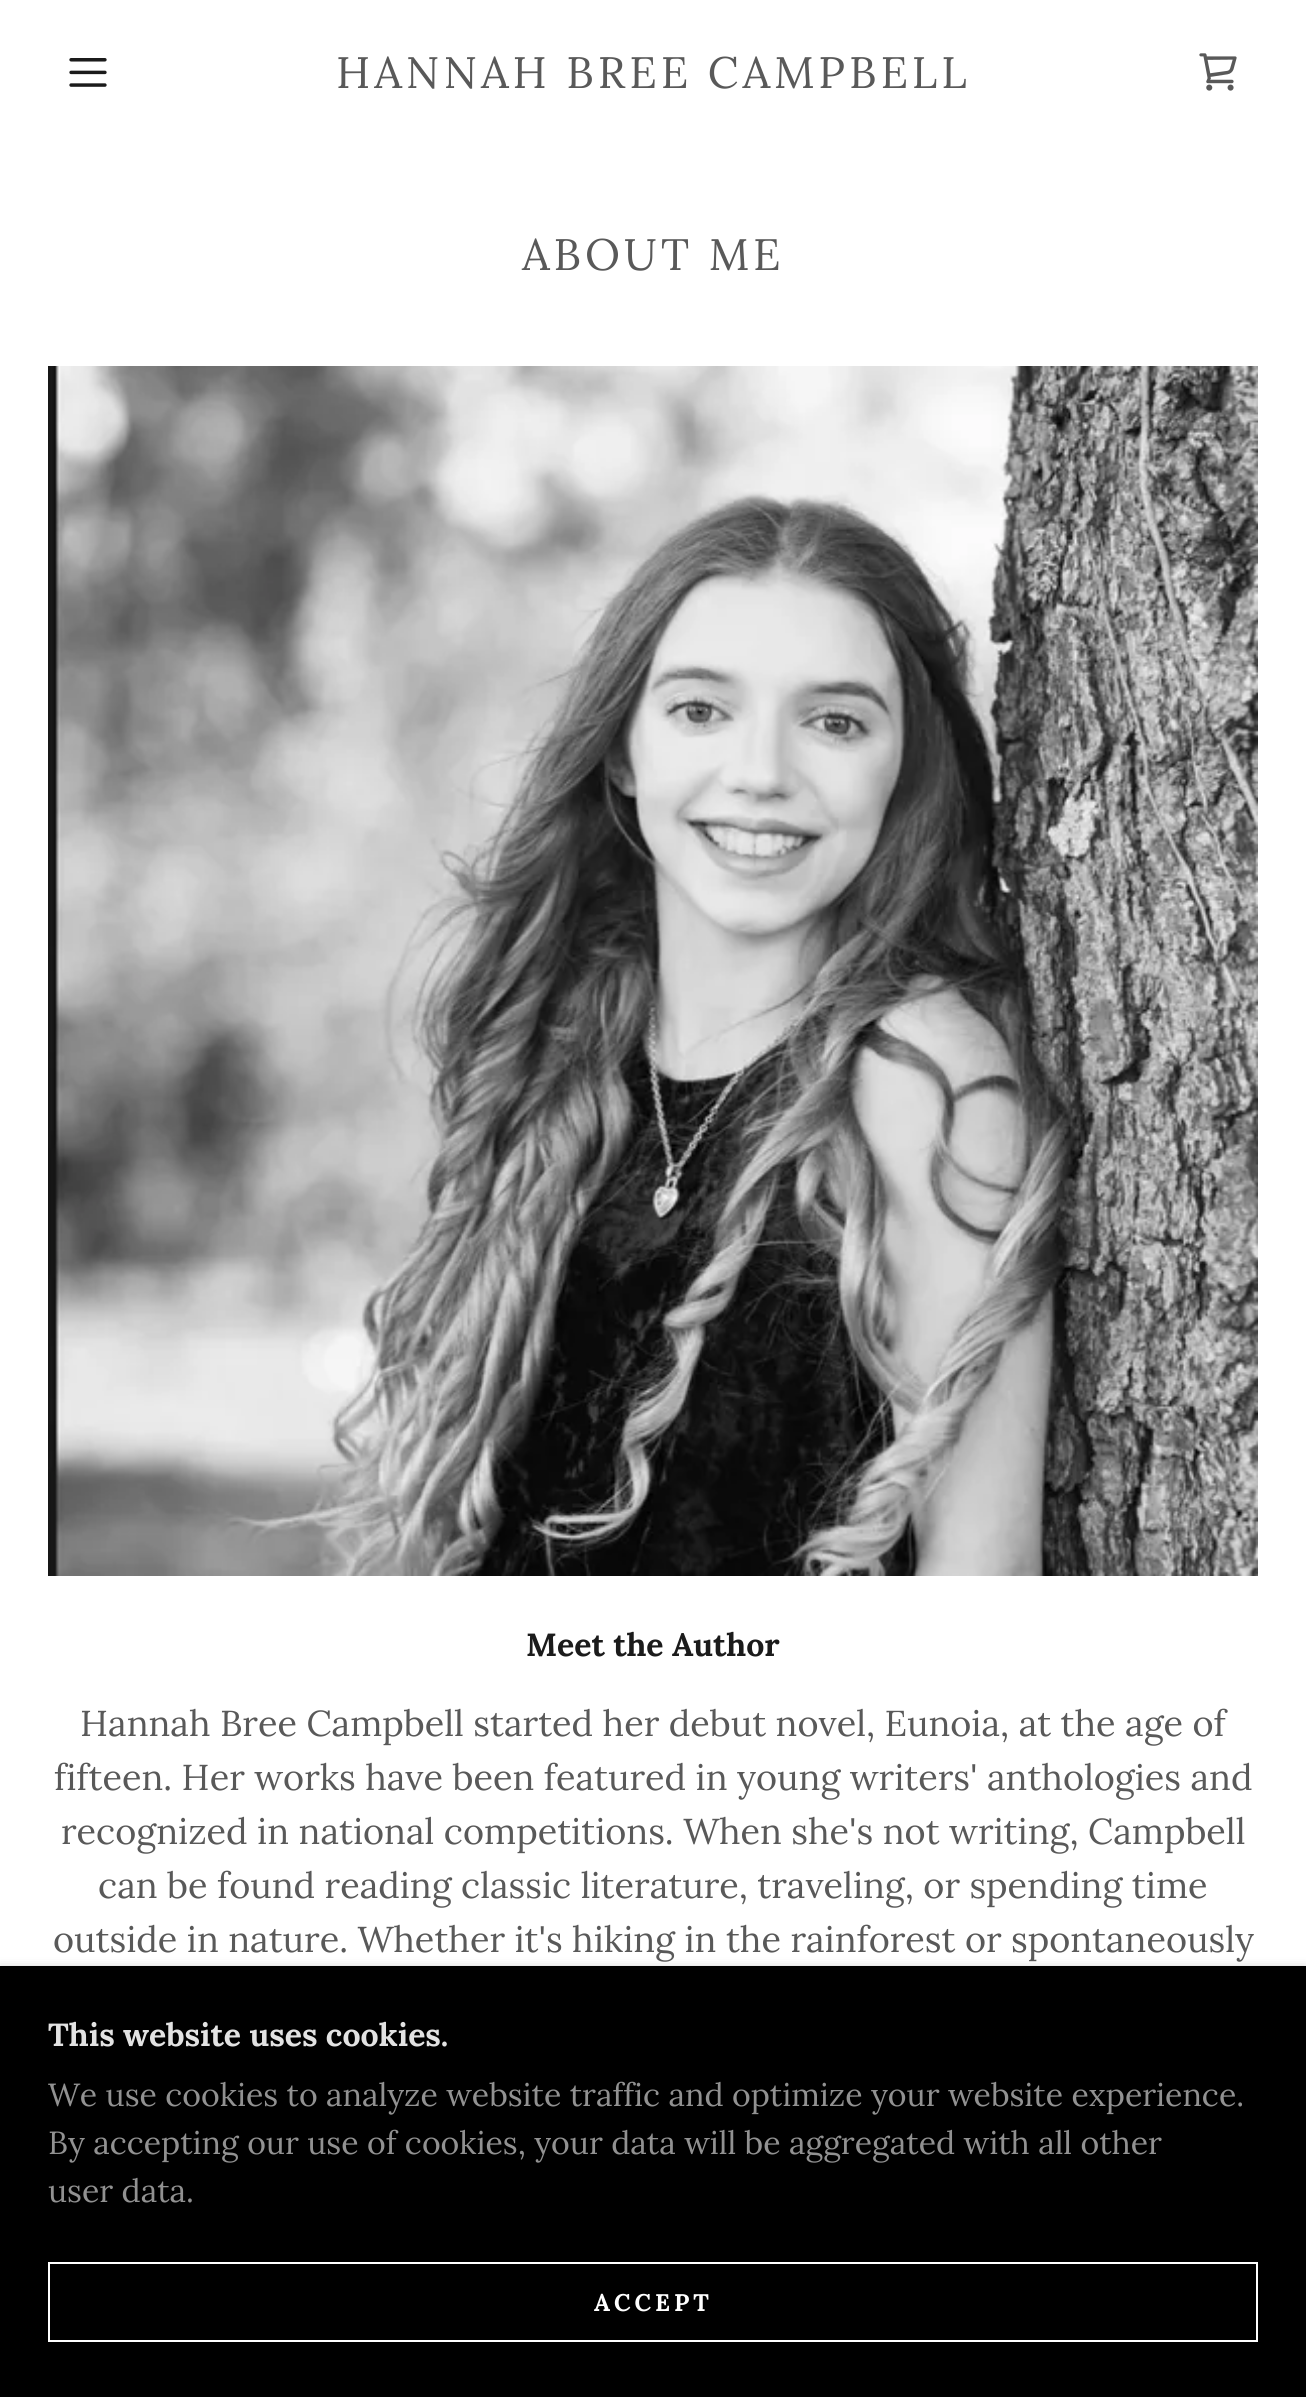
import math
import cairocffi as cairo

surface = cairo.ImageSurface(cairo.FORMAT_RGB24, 1306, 2397)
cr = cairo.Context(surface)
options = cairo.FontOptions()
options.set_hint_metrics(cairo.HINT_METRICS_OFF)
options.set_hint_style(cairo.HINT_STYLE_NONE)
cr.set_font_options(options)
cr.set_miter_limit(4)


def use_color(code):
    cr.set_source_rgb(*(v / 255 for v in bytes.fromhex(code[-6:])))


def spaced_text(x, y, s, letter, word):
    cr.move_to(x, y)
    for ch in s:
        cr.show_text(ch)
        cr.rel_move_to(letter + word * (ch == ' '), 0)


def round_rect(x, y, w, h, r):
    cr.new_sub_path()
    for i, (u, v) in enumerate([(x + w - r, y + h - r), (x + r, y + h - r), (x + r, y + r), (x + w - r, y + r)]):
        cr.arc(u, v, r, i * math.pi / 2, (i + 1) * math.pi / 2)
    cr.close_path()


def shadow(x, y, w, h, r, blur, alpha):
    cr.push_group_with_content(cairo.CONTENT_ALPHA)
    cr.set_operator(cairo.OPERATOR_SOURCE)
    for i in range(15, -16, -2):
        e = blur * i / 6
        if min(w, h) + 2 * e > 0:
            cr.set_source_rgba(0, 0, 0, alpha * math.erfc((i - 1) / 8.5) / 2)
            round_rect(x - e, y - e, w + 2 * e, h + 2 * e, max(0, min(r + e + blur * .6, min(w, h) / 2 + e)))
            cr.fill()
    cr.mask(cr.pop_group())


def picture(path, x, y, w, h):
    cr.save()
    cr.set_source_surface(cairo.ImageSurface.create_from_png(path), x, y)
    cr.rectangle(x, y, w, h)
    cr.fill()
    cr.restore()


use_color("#ffffff")
cr.paint()
picture("img1.png", 69, 58, 38, 29)
cr.select_font_face("Lora")
cr.set_font_size(44)
use_color("#595959")
spaced_text(336, 88, "HANNAH BREE CAMPBELL", 4, 0)
picture("img2.png", 1199, 53, 38, 38)
spaced_text(522, 270, "ABOUT ME", 4, 0)
picture("img3.png", 48, 366, 1210, 1210)
cr.select_font_face("Lora", cairo.FONT_SLANT_NORMAL, cairo.FONT_WEIGHT_BOLD)
cr.set_font_size(32)
use_color("#1b1b1b")
cr.move_to(526, 1656)
cr.show_text("Meet the Author")
cr.select_font_face("Lora")
cr.set_font_size(36)
use_color("#595959")
cr.move_to(80, 1736)
cr.show_text("Hannah Bree Campbell started her debut novel, Eunoia, at the age of")
cr.move_to(54, 1790)
cr.show_text("fifteen. Her works have been featured in young writers' anthologies and")
cr.move_to(61, 1844)
cr.show_text("recognized in national competitions. When she's not writing, Campbell")
cr.move_to(98, 1898)
cr.show_text("can be found reading classic literature, traveling, or spending time")
cr.move_to(53, 1952)
cr.show_text("outside in nature. Whether it's hiking in the rainforest or spontaneously")
use_color("#000000")
shadow(0, 1970, 1306, 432, 0, 6, 0.3)
use_color("#000000")
cr.rectangle(0, 1966, 1306, 431)
cr.fill()
cr.select_font_face("Lora", cairo.FONT_SLANT_NORMAL, cairo.FONT_WEIGHT_BOLD)
cr.set_font_size(32)
use_color("#e2e2e2")
cr.move_to(48, 2046)
cr.show_text("This website uses cookies.")
cr.select_font_face("Lora")
use_color("#919191")
cr.move_to(48, 2106)
cr.show_text("We use cookies to analyze website traffic and optimize your website experience.")
cr.move_to(48, 2154)
cr.show_text("By accepting our use of cookies, your data will be aggregated with all other")
cr.move_to(48, 2202)
cr.show_text("user data.")
cr.rectangle(49, 2263, 1208, 78)
use_color("#ffffff")
cr.stroke()
cr.select_font_face("Lora", cairo.FONT_SLANT_NORMAL, cairo.FONT_WEIGHT_BOLD)
cr.set_font_size(24)
spaced_text(594, 2311, "ACCEPT", 4, 0)
surface.write_to_png("result.png")
